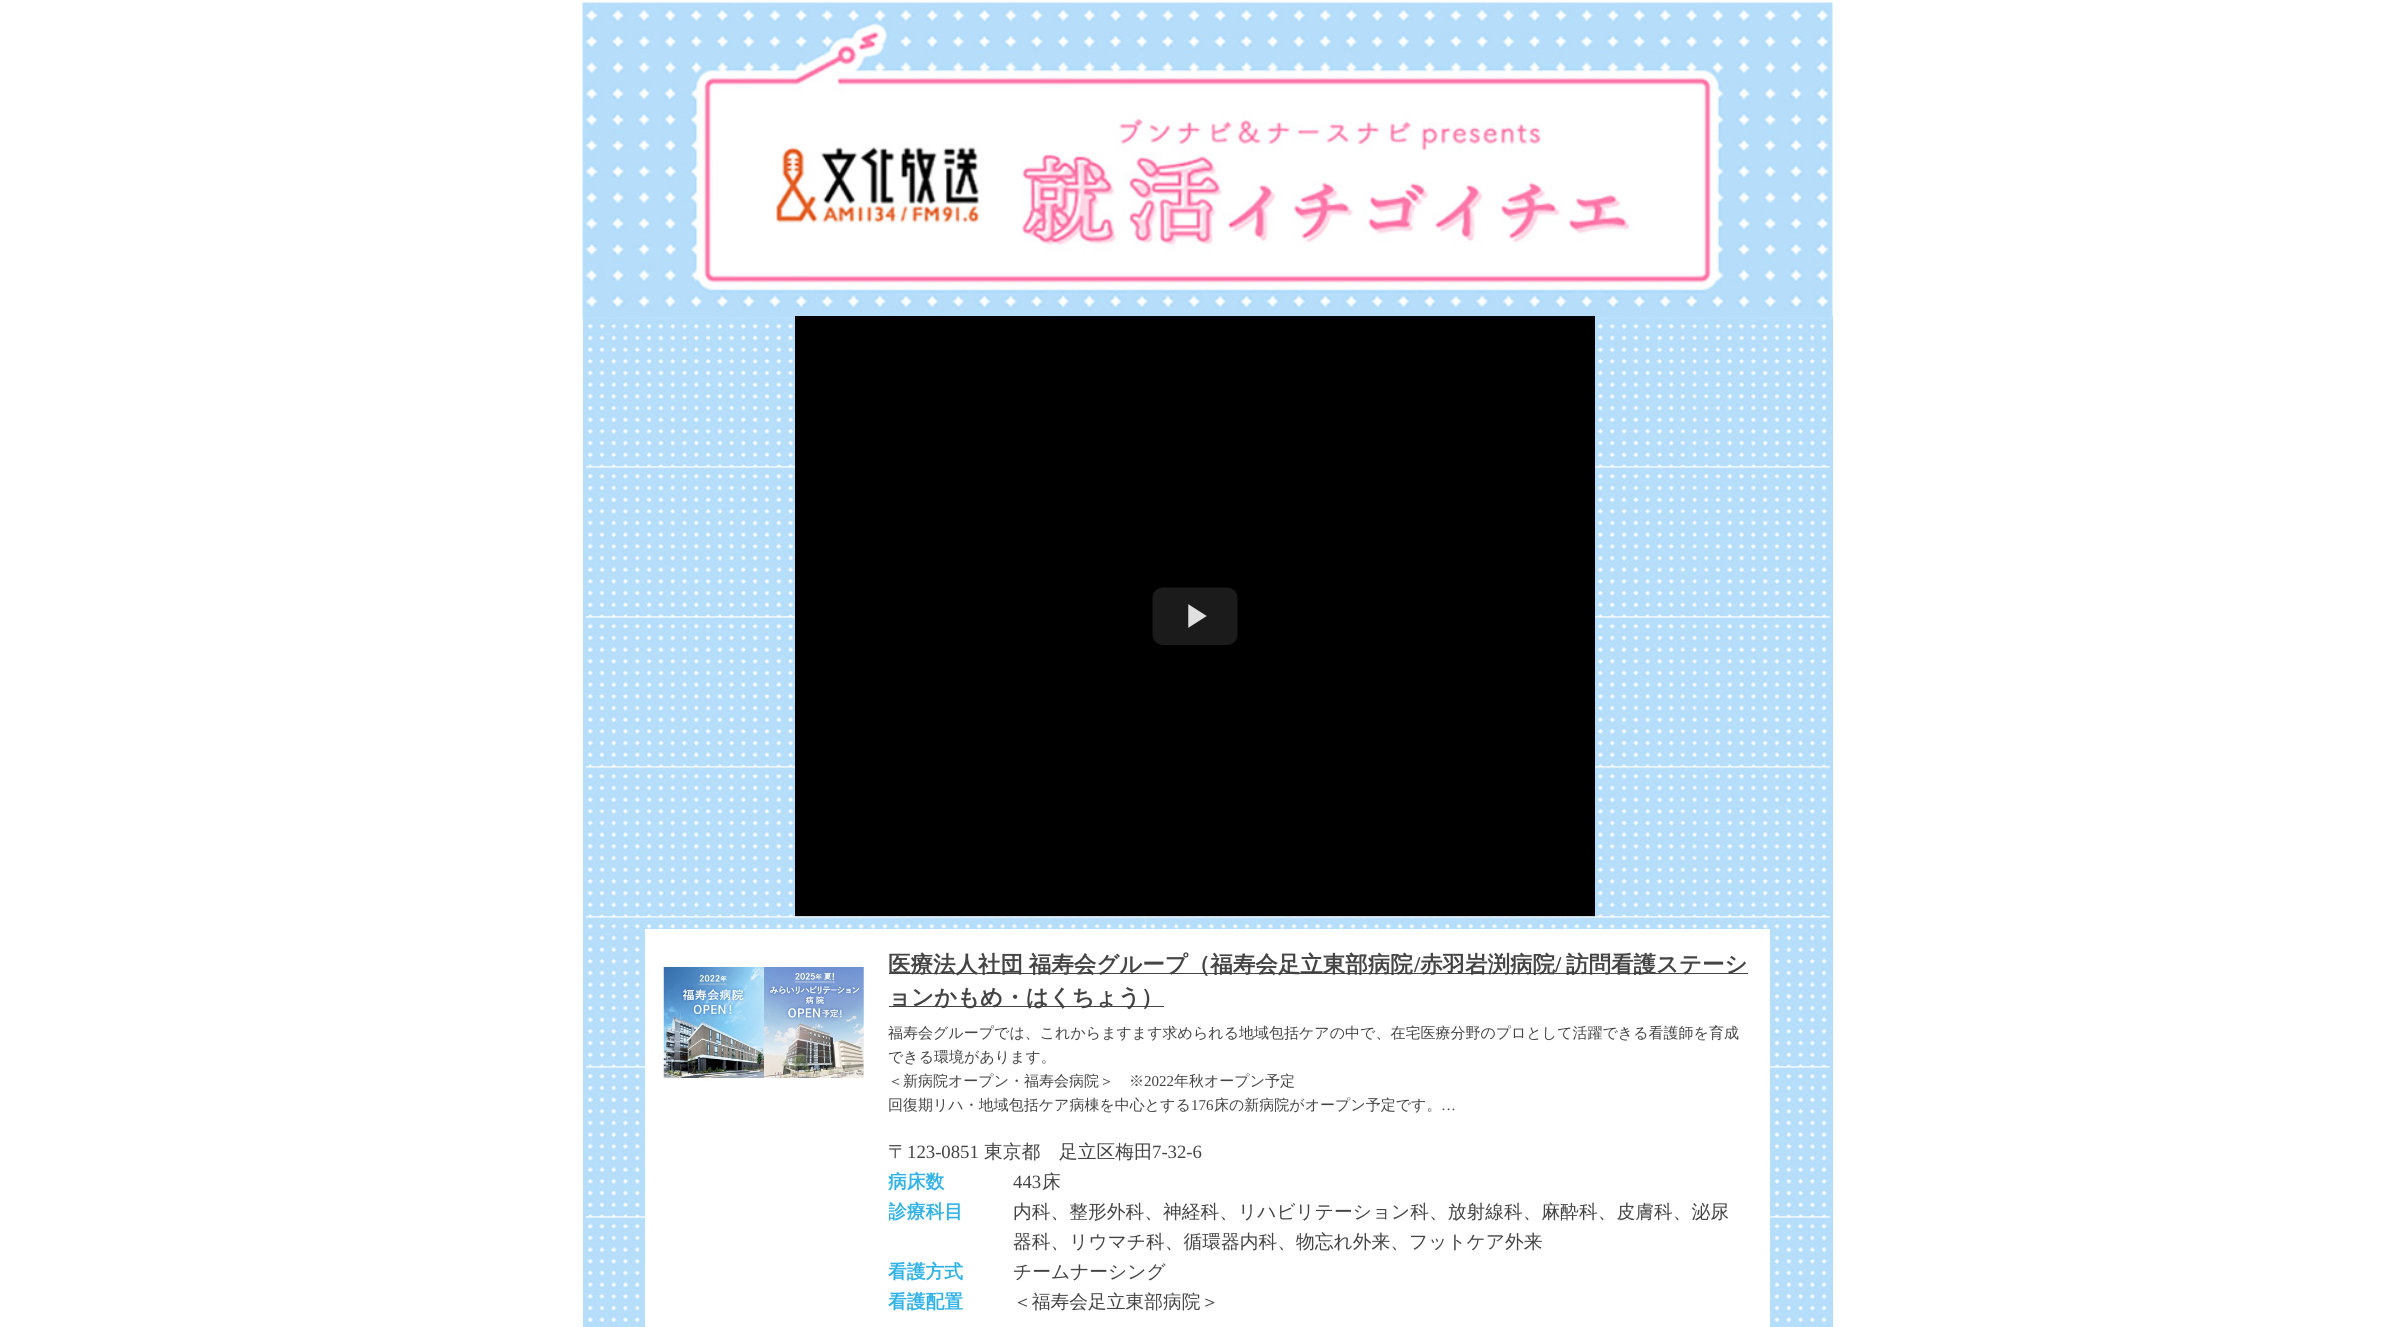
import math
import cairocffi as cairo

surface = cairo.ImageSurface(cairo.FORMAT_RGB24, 2391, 1327)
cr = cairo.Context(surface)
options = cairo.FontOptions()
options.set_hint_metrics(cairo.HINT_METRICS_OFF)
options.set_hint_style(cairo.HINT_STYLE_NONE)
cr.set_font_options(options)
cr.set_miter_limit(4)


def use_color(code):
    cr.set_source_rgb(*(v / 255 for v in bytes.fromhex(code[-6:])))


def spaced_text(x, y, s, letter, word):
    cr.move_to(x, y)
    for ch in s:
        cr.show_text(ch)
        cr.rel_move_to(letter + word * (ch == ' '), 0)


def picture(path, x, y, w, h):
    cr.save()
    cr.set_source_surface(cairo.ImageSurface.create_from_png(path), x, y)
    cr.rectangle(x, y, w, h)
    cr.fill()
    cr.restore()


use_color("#ffffff")
cr.paint()
picture("img2.png", 582, 316, 1248, 1011)
use_color("#b6defb")
cr.rectangle(1830, 316, 3, 1011)
cr.fill()
cr.rectangle(583, 316, 3, 1011)
cr.fill()
picture("img1.png", 582, 2, 1251, 317)
picture("img3.png", 795, 316, 800, 601)
use_color("#ffffff")
cr.rectangle(645, 929, 1125, 398)
cr.fill()
picture("img4.png", 663, 965, 201, 116)
use_color("#444444")
cr.rectangle(889, 973, 859, 1)
cr.fill()
cr.select_font_face("WenQuanYi Zen Hei", cairo.FONT_SLANT_NORMAL, cairo.FONT_WEIGHT_BOLD)
cr.set_font_size(22.5)
spaced_text(888, 972, "医療法人社団 福寿会グループ（福寿会足立東部病院", 0, -1)
cr.select_font_face("Liberation Serif", cairo.FONT_SLANT_NORMAL, cairo.FONT_WEIGHT_BOLD)
cr.move_to(1414, 972)
cr.show_text("/")
cr.select_font_face("WenQuanYi Zen Hei", cairo.FONT_SLANT_NORMAL, cairo.FONT_WEIGHT_BOLD)
cr.move_to(1420, 972)
cr.show_text("赤羽岩渕病院")
cr.select_font_face("Liberation Serif", cairo.FONT_SLANT_NORMAL, cairo.FONT_WEIGHT_BOLD)
cr.move_to(1555, 972)
cr.show_text("/")
cr.select_font_face("WenQuanYi Zen Hei", cairo.FONT_SLANT_NORMAL, cairo.FONT_WEIGHT_BOLD)
cr.move_to(1566, 972)
cr.show_text("訪問看護ステーシ")
cr.rectangle(889, 1006, 275, 1)
cr.fill()
cr.move_to(888, 1005)
cr.show_text("ョンかもめ・はくちょう）")
cr.select_font_face("WenQuanYi Zen Hei Medium")
cr.set_font_size(15)
cr.move_to(888, 1038)
cr.show_text("福寿会グループでは、これからますます求められる地域包括ケアの中で、在宅医療分野のプロとして活躍できる看護師を育成")
cr.move_to(888, 1062)
cr.show_text("できる環境があります。")
cr.move_to(888, 1086)
cr.show_text("＜新病院オープン・福寿会病院＞　※")
cr.select_font_face("Liberation Serif")
cr.move_to(1144, 1086)
cr.show_text("2022")
cr.select_font_face("WenQuanYi Zen Hei Medium")
cr.move_to(1174, 1086)
cr.show_text("年秋オープン予定")
cr.move_to(888, 1110)
cr.show_text("回復期リハ・地域包括ケア病棟を中心とする")
cr.select_font_face("Liberation Serif")
cr.move_to(1191, 1110)
cr.show_text("176")
cr.select_font_face("WenQuanYi Zen Hei Medium")
cr.move_to(1214, 1110)
cr.show_text("床の新病院がオープン予定です。")
cr.select_font_face("Liberation Serif")
cr.move_to(1441, 1110)
cr.show_text("…")
cr.select_font_face("WenQuanYi Zen Hei Medium")
cr.set_font_size(18.75)
cr.move_to(888, 1158)
cr.show_text("〒")
cr.select_font_face("Liberation Serif")
cr.move_to(907, 1158)
cr.show_text("123-0851")
cr.select_font_face("WenQuanYi Zen Hei Medium")
cr.move_to(984, 1158)
cr.show_text("東京都　足立区梅田")
cr.select_font_face("Liberation Serif")
cr.move_to(1152, 1158)
cr.show_text("7-32-6")
cr.select_font_face("WenQuanYi Zen Hei", cairo.FONT_SLANT_NORMAL, cairo.FONT_WEIGHT_BOLD)
use_color("#31b3e8")
cr.move_to(888, 1188)
cr.show_text("病床数")
cr.select_font_face("Liberation Serif")
use_color("#444444")
cr.move_to(1013, 1188)
cr.show_text("443")
cr.select_font_face("WenQuanYi Zen Hei Medium")
cr.move_to(1042, 1188)
cr.show_text("床")
cr.save()
cr.rectangle(889, 1198, 862, 60)
cr.clip()
cr.select_font_face("WenQuanYi Zen Hei", cairo.FONT_SLANT_NORMAL, cairo.FONT_WEIGHT_BOLD)
use_color("#31b3e8")
cr.move_to(888, 1218)
cr.show_text("診療科目")
cr.restore()
cr.move_to(1013, 1218)
cr.show_text("内科、整形外科、神経科、リハビリテーション科、放射線科、麻酔科、皮膚科、泌尿")
cr.move_to(1013, 1248)
cr.show_text("器科、リウマチ科、循環器内科、物忘れ外来、フットケア外来")
cr.select_font_face("WenQuanYi Zen Hei", cairo.FONT_SLANT_NORMAL, cairo.FONT_WEIGHT_BOLD)
use_color("#31b3e8")
cr.move_to(888, 1278)
cr.show_text("看護方式")
cr.select_font_face("WenQuanYi Zen Hei Medium")
use_color("#444444")
cr.move_to(1013, 1278)
cr.show_text("チームナーシング")
cr.select_font_face("WenQuanYi Zen Hei", cairo.FONT_SLANT_NORMAL, cairo.FONT_WEIGHT_BOLD)
use_color("#31b3e8")
cr.move_to(888, 1308)
cr.show_text("看護配置")
cr.select_font_face("WenQuanYi Zen Hei Medium")
use_color("#444444")
cr.move_to(1013, 1308)
cr.show_text("＜福寿会足立東部病院＞")
surface.write_to_png("result.png")
